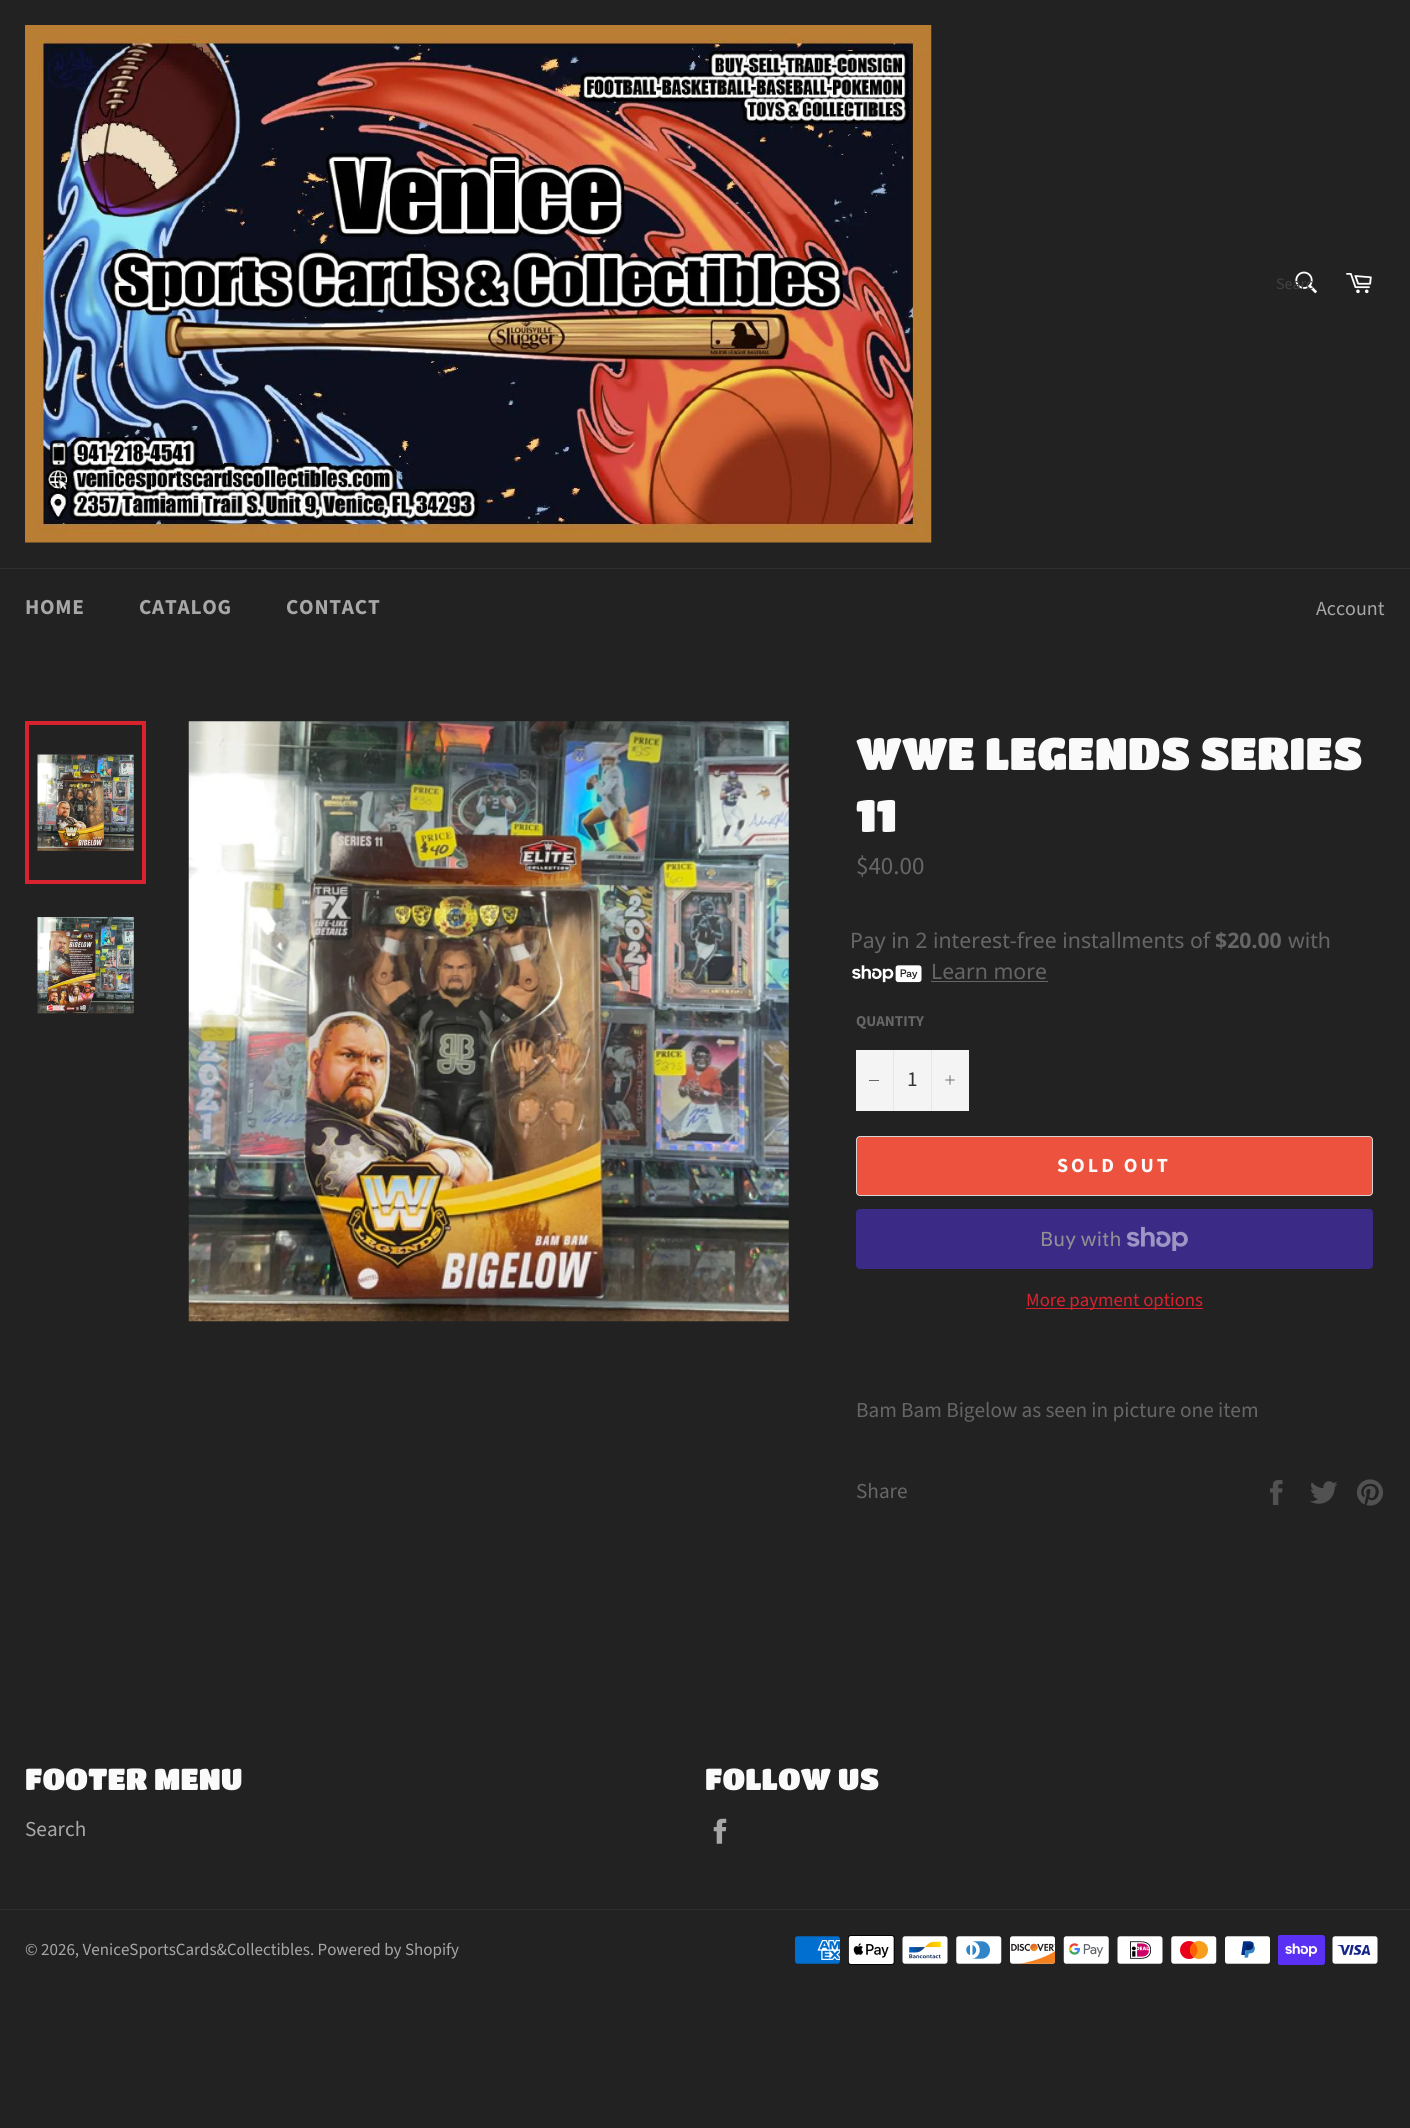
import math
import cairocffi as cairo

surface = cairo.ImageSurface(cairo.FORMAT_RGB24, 1410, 2128)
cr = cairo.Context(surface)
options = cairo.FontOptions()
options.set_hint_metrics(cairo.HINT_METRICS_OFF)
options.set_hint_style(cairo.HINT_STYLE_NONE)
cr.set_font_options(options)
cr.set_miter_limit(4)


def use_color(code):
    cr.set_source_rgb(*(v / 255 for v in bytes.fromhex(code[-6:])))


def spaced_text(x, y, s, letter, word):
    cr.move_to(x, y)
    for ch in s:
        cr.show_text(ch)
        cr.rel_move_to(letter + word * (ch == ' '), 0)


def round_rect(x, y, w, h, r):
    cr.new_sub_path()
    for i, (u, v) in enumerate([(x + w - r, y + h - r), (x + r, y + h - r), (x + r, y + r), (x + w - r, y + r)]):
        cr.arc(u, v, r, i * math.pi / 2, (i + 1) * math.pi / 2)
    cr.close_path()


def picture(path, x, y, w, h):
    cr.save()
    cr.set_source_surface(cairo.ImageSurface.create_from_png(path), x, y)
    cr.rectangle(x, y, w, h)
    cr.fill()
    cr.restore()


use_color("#222222")
cr.paint()
picture("img1.png", 25, 25, 907, 518)
picture("img2.png", 1295, 271, 22, 23)
cr.select_font_face("Source Sans Pro")
cr.set_font_size(16)
use_color("#414141")
cr.move_to(1276, 289)
cr.show_text("Searc")
picture("img3.png", 1346, 273, 26, 21)
use_color("#2f2f2f")
cr.rectangle(0, 568, 1410, 1)
cr.fill()
cr.select_font_face("Source Sans Pro", cairo.FONT_SLANT_NORMAL, cairo.FONT_WEIGHT_BOLD)
cr.set_font_size(21.25)
use_color("#a7a7a7")
spaced_text(25, 614, "HOME", 0.75, 0)
spaced_text(139, 614, "CATALOG", 0.75, 0)
spaced_text(286, 614, "CONTACT", 0.75, 0)
cr.select_font_face("Source Sans Pro")
cr.set_font_size(20)
cr.move_to(1316, 615)
cr.show_text("Account")
picture("img4.png", 37, 754, 97, 97)
cr.rectangle(27, 723, 117, 159)
use_color("#d8232f")
cr.set_line_width(4)
cr.stroke()
picture("img5.png", 37, 917, 97, 97)
picture("img6.png", 188, 721, 601, 601)
cr.select_font_face("Titan One")
cr.set_font_size(45)
use_color("#fafafa")
cr.move_to(856, 770)
cr.show_text("WWE LEGENDS SERIES")
cr.move_to(856, 832)
cr.show_text("11")
cr.select_font_face("Source Sans Pro")
cr.set_font_size(25)
use_color("#666666")
cr.move_to(856, 874)
cr.show_text("$40.00")
cr.select_font_face("Noto Sans")
cr.set_font_size(21.25)
cr.move_to(850, 948)
cr.show_text("Pay in 2 interest-free installments of")
cr.select_font_face("Noto Sans", cairo.FONT_SLANT_NORMAL, cairo.FONT_WEIGHT_BOLD)
cr.move_to(1215, 948)
cr.show_text("$20.00")
cr.select_font_face("Noto Sans")
cr.move_to(1288, 948)
cr.show_text("with")
picture("img7.png", 852, 965, 70, 18)
cr.move_to(931, 979)
cr.show_text("Learn more")
cr.rectangle(931, 981, 117, 1)
cr.fill()
cr.select_font_face("Source Sans Pro", cairo.FONT_SLANT_NORMAL, cairo.FONT_WEIGHT_BOLD)
cr.set_font_size(15)
cr.move_to(856, 1026)
cr.show_text("QUANTITY")
use_color("#f4f4f4")
cr.rectangle(856, 1050, 113, 61)
cr.fill()
use_color("#e7e7e7")
cr.rectangle(893, 1050, 1, 61)
cr.fill()
use_color("#666666")
cr.rectangle(869, 1080, 10, 1)
cr.fill()
cr.select_font_face("Source Sans Pro")
cr.set_font_size(21.25)
use_color("#333333")
cr.move_to(907, 1086)
cr.show_text("1")
use_color("#e7e7e7")
cr.rectangle(931, 1050, 1, 61)
cr.fill()
picture("img8.png", 945, 1075, 10, 10)
use_color("#ec523e")
round_rect(856.5, 1136.5, 516, 59, 3.5)
cr.fill_preserve()
use_color("#d5d5d5")
cr.set_line_width(1)
cr.stroke()
cr.select_font_face("Source Sans Pro", cairo.FONT_SLANT_NORMAL, cairo.FONT_WEIGHT_BOLD)
cr.set_font_size(20)
use_color("#fafafa")
spaced_text(1057, 1172, "SOLD OUT", 3, 0)
use_color("#3b2b87")
round_rect(856, 1209, 517, 60, 4)
cr.fill()
cr.select_font_face("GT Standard")
use_color("#919191")
cr.move_to(1040, 1246)
cr.show_text("Buy with")
picture("img9.png", 1127, 1226, 61, 25)
use_color("#d8232f")
cr.rectangle(1026, 1308, 177, 1)
cr.fill()
cr.select_font_face("Source Sans Pro")
cr.set_font_size(18.75)
cr.move_to(1026, 1306)
cr.show_text("More payment options")
cr.set_font_size(21.25)
use_color("#666666")
cr.move_to(856, 1417)
cr.show_text("Bam Bam Bigelow as seen in picture one item")
cr.move_to(856, 1498)
cr.show_text("Share")
picture("img10.png", 1270, 1480, 13, 25)
picture("img11.png", 1310, 1481, 28, 23)
picture("img12.png", 1356, 1479, 28, 27)
cr.select_font_face("Titan One")
cr.set_font_size(30)
use_color("#fafafa")
cr.move_to(25, 1790)
cr.show_text("FOOTER MENU")
cr.select_font_face("Source Sans Pro")
cr.set_font_size(21.25)
use_color("#a7a7a7")
cr.move_to(25, 1836)
cr.show_text("Search")
cr.select_font_face("Titan One")
cr.set_font_size(30)
use_color("#fafafa")
cr.move_to(705, 1790)
cr.show_text("FOLLOW US")
picture("img13.png", 713, 1818, 14, 26)
use_color("#2f2f2f")
cr.rectangle(0, 1909, 1410, 1)
cr.fill()
cr.select_font_face("Source Sans Pro")
cr.set_font_size(17)
use_color("#a7a7a7")
cr.move_to(25, 1955)
cr.show_text("© 2026, VeniceSportsCards&Collectibles. Powered by Shopify")
picture("img14.png", 795, 1936, 45, 28)
picture("img15.png", 848, 1935, 47, 30)
picture("img16.png", 902, 1936, 46, 28)
picture("img17.png", 956, 1936, 46, 28)
picture("img18.png", 1010, 1936, 45, 28)
picture("img19.png", 1063, 1936, 46, 28)
picture("img20.png", 1117, 1936, 46, 28)
picture("img21.png", 1171, 1936, 46, 28)
picture("img22.png", 1225, 1936, 45, 28)
picture("img23.png", 1278, 1935, 47, 30)
picture("img24.png", 1332, 1936, 46, 28)
surface.write_to_png("result.png")
